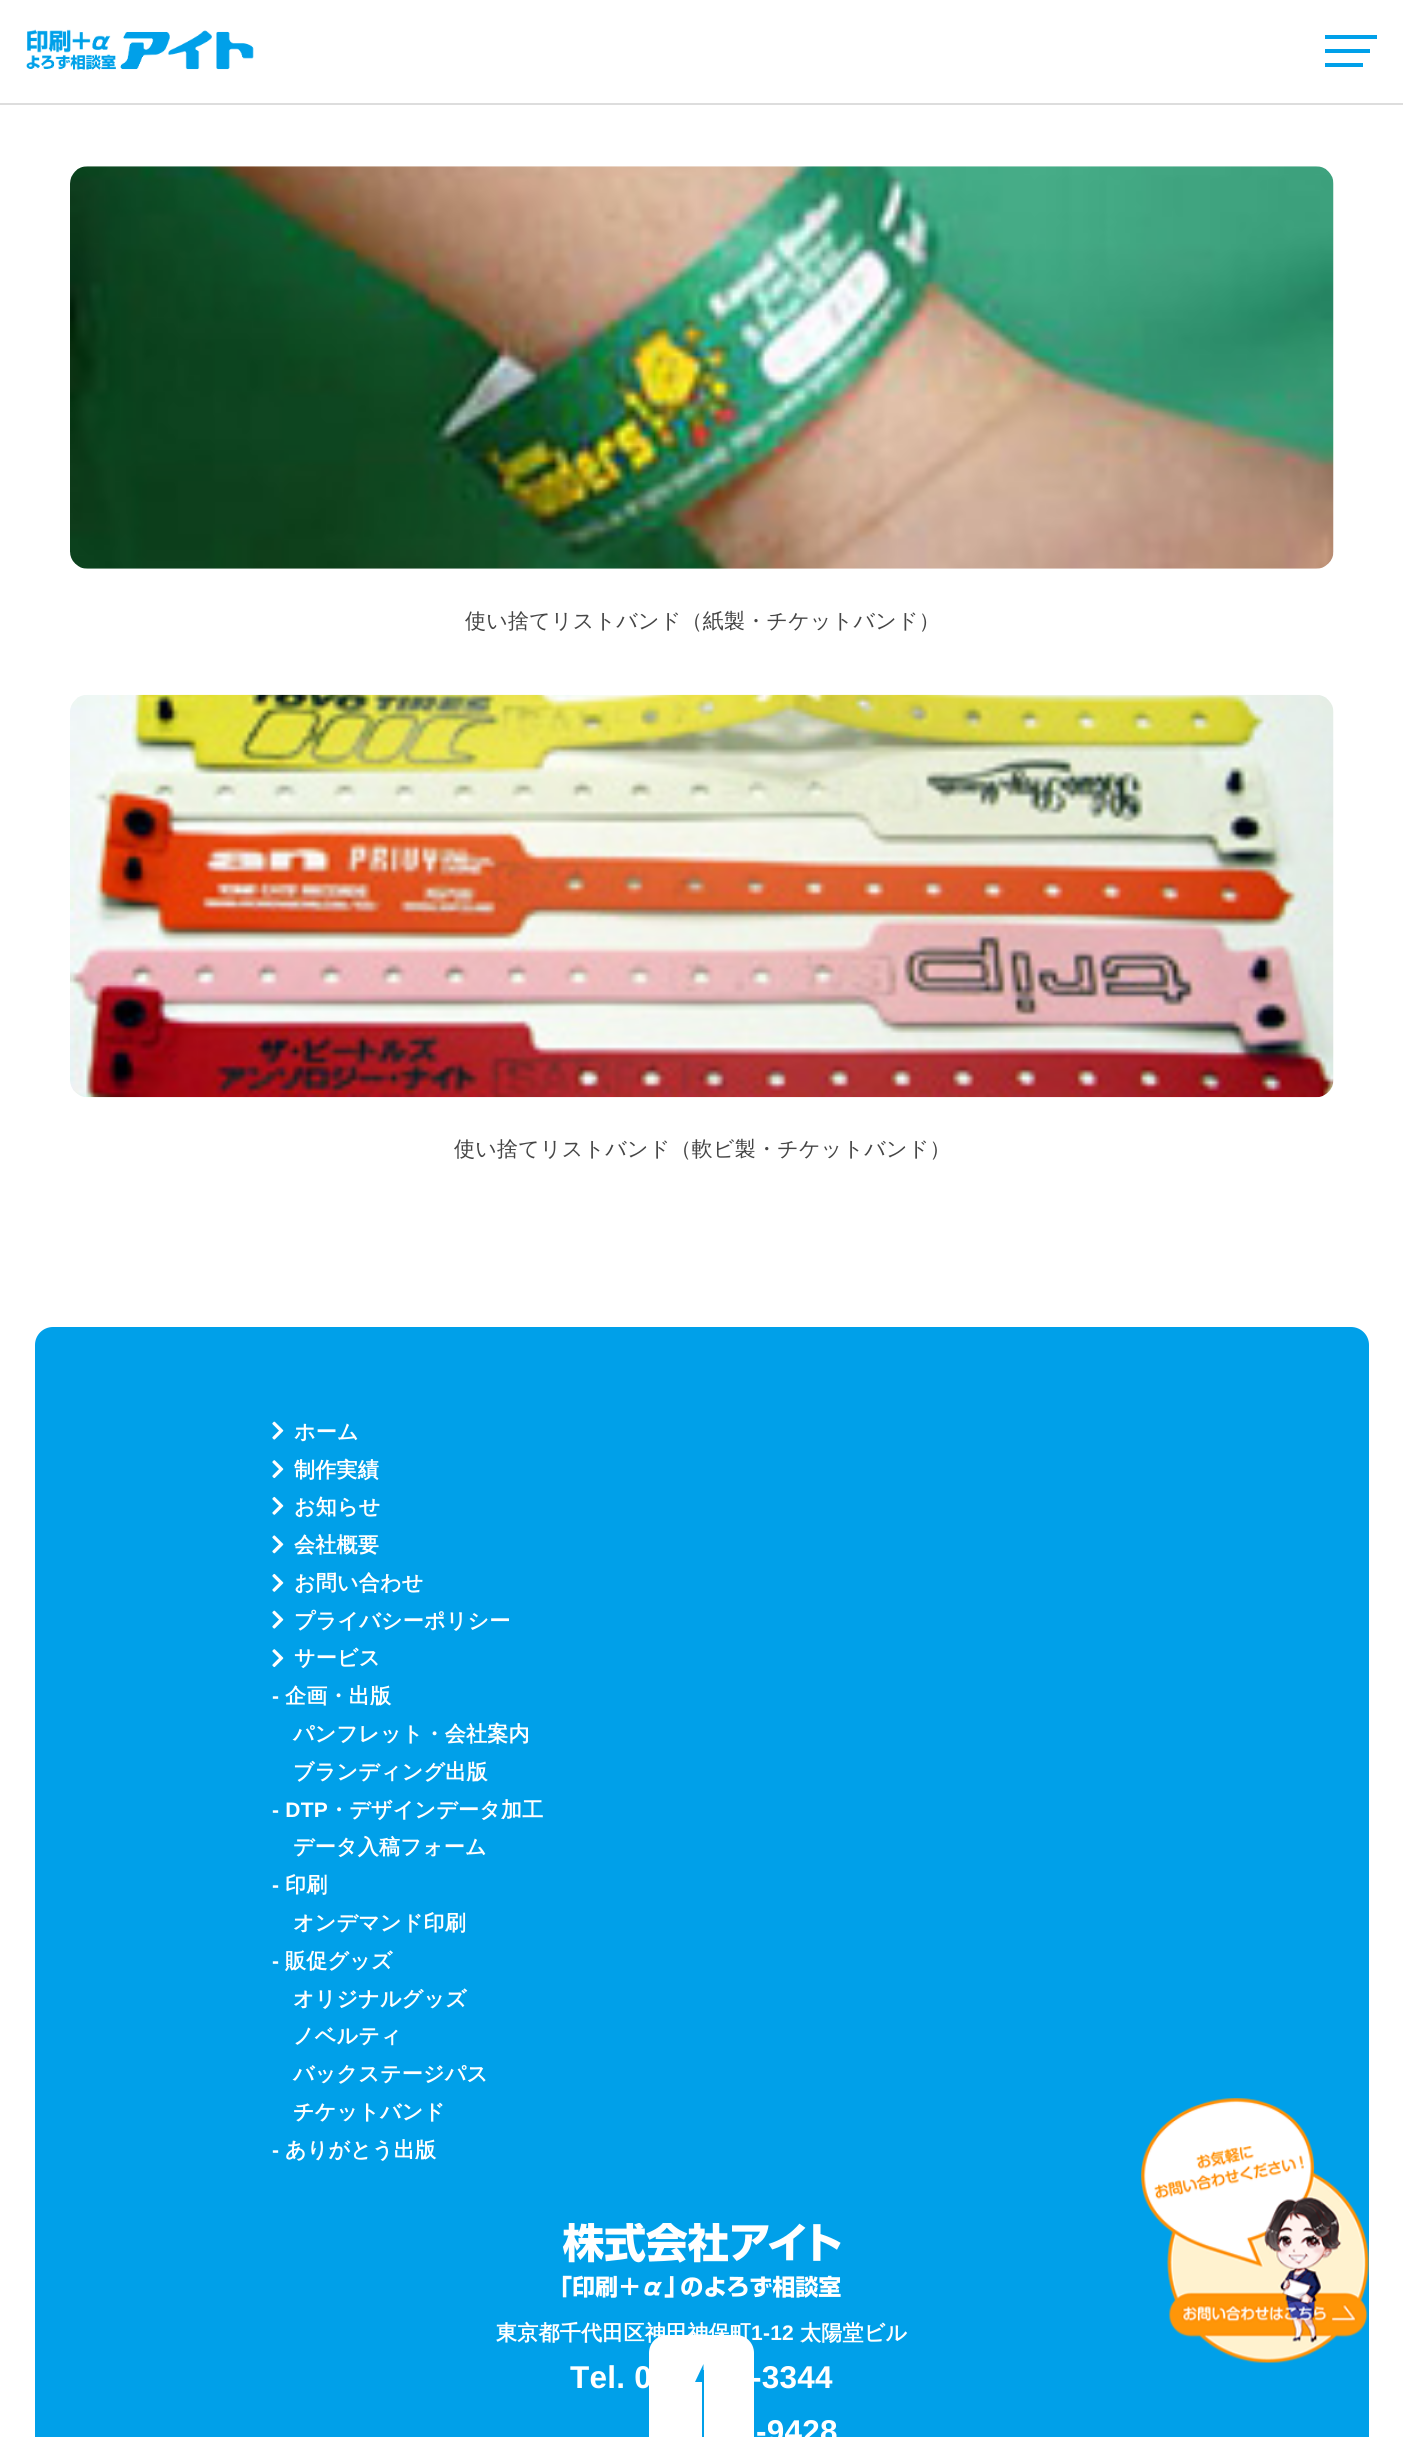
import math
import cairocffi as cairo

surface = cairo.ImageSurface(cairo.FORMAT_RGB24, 1403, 2437)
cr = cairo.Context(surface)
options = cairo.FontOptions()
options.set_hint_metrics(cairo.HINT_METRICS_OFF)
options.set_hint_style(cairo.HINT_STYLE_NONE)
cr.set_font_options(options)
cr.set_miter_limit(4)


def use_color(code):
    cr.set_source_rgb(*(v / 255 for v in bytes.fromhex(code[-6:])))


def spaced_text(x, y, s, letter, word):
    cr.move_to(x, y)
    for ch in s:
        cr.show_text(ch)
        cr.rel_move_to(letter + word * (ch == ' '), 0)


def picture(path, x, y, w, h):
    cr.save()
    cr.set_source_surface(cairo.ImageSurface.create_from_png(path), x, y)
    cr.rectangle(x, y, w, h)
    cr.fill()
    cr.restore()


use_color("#ffffff")
cr.paint()
use_color("#00a0e9")
cr.rectangle(1325, 35, 52, 4)
cr.fill()
cr.rectangle(1325, 49, 45, 4)
cr.fill()
cr.rectangle(1325, 63, 38, 4)
cr.fill()
use_color("#dddddd")
cr.rectangle(0, 103, 1403, 2)
cr.fill()
picture("img1.png", 26, 29, 228, 41)
picture("img2.png", 70, 166, 1264, 403)
cr.select_font_face("WenQuanYi Zen Hei Medium")
cr.set_font_size(21)
use_color("#454545")
spaced_text(465, 628, "使い捨てリストバンド（紙製・チケットバンド）", 0.25, 0)
picture("img3.png", 70, 694, 1264, 404)
spaced_text(454, 1156, "使い捨てリストバンド（軟ビ製・チケットバンド）", 0.25, 0)
use_color("#00a0e9")
cr.new_path()
cr.move_to(53, 1327)
cr.line_to(1351, 1327)
cr.curve_to(1361, 1327, 1369, 1335, 1369, 1345)
cr.line_to(1369, 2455)
cr.line_to(35, 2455)
cr.line_to(35, 1345)
cr.curve_to(35, 1335, 43, 1327, 53, 1327)
cr.close_path()
cr.fill()
picture("img4.png", 272, 1421, 12, 19)
cr.select_font_face("WenQuanYi Zen Hei", cairo.FONT_SLANT_NORMAL, cairo.FONT_WEIGHT_BOLD)
use_color("#ffffff")
spaced_text(294, 1439, "ホーム", 0.25, 0)
picture("img5.png", 272, 1460, 12, 19)
spaced_text(294, 1477, "制作実績", 0.25, 0)
picture("img6.png", 272, 1496, 12, 19)
spaced_text(294, 1514, "お知らせ", 0.25, 0)
picture("img7.png", 272, 1535, 12, 19)
spaced_text(294, 1552, "会社概要", 0.25, 0)
picture("img6.png", 272, 1573, 12, 19)
spaced_text(294, 1590, "お問い合わせ", 0.25, 0)
picture("img4.png", 272, 1610, 12, 19)
spaced_text(294, 1628, "プライバシーポリシー", 0.25, 0)
picture("img5.png", 272, 1649, 12, 19)
spaced_text(294, 1665, "サービス", 0.25, 0)
cr.select_font_face("Liberation Sans", cairo.FONT_SLANT_NORMAL, cairo.FONT_WEIGHT_BOLD)
spaced_text(272, 1703, "-", 0.25, 0)
cr.select_font_face("WenQuanYi Zen Hei", cairo.FONT_SLANT_NORMAL, cairo.FONT_WEIGHT_BOLD)
spaced_text(285, 1703, "企画・出版", 0.25, 0)
spaced_text(293, 1741, "パンフレット・会社案内", 0.25, 0)
spaced_text(293, 1779, "ブランディング出版", 0.25, 0)
cr.select_font_face("Liberation Sans", cairo.FONT_SLANT_NORMAL, cairo.FONT_WEIGHT_BOLD)
spaced_text(272, 1817, "- DTP", 0.25, 0)
cr.select_font_face("WenQuanYi Zen Hei", cairo.FONT_SLANT_NORMAL, cairo.FONT_WEIGHT_BOLD)
spaced_text(328, 1817, "・デザインデータ加工", 0.25, 0)
spaced_text(293, 1854, "データ入稿フォーム", 0.25, 0)
cr.select_font_face("Liberation Sans", cairo.FONT_SLANT_NORMAL, cairo.FONT_WEIGHT_BOLD)
spaced_text(272, 1892, "-", 0.25, 0)
cr.select_font_face("WenQuanYi Zen Hei", cairo.FONT_SLANT_NORMAL, cairo.FONT_WEIGHT_BOLD)
spaced_text(285, 1892, "印刷", 0.25, 0)
spaced_text(293, 1930, "オンデマンド印刷", 0.25, 0)
cr.select_font_face("Liberation Sans", cairo.FONT_SLANT_NORMAL, cairo.FONT_WEIGHT_BOLD)
spaced_text(272, 1968, "-", 0.25, 0)
cr.select_font_face("WenQuanYi Zen Hei", cairo.FONT_SLANT_NORMAL, cairo.FONT_WEIGHT_BOLD)
spaced_text(285, 1968, "販促グッズ", 0.25, 0)
spaced_text(293, 2006, "オリジナルグッズ", 0.25, 0)
spaced_text(293, 2043, "ノベルティ", 0.25, 0)
spaced_text(293, 2081, "バックステージパス", 0.25, 0)
spaced_text(293, 2119, "チケットバンド", 0.25, 0)
cr.select_font_face("Liberation Sans", cairo.FONT_SLANT_NORMAL, cairo.FONT_WEIGHT_BOLD)
spaced_text(272, 2157, "-", 0.25, 0)
cr.select_font_face("WenQuanYi Zen Hei", cairo.FONT_SLANT_NORMAL, cairo.FONT_WEIGHT_BOLD)
spaced_text(285, 2157, "ありがとう出版", 0.25, 0)
picture("img8.png", 562, 2223, 279, 75)
spaced_text(496, 2340, "東京都千代田区神田神保町", 0.25, 0)
cr.select_font_face("Liberation Sans", cairo.FONT_SLANT_NORMAL, cairo.FONT_WEIGHT_BOLD)
spaced_text(751, 2340, "1-12", 0.25, 0)
cr.select_font_face("WenQuanYi Zen Hei", cairo.FONT_SLANT_NORMAL, cairo.FONT_WEIGHT_BOLD)
spaced_text(800, 2340, "太陽堂ビル", 0.25, 0)
cr.select_font_face("Liberation Sans", cairo.FONT_SLANT_NORMAL, cairo.FONT_WEIGHT_BOLD)
cr.set_font_size(31.5)
spaced_text(570, 2388, "Tel. 0", 0.25, 0)
spaced_text(751, 2388, "-3344", 0.25, 0)
spaced_text(756, 2442, "-9428", 0.25, 0)
picture("img9.png", 1141, 2098, 228, 265)
cr.new_path()
cr.move_to(667, 2335)
cr.line_to(736, 2335)
cr.curve_to(746, 2335, 754, 2343, 754, 2353)
cr.line_to(754, 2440)
cr.line_to(649, 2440)
cr.line_to(649, 2353)
cr.curve_to(649, 2343, 657, 2335, 667, 2335)
cr.close_path()
cr.fill()
use_color("#00a0e9")
cr.rectangle(702, 2370, 2, 67)
cr.fill()
cr.new_path()
cr.move_to(703.5, 2382)
cr.line_to(695, 2382)
cr.line_to(703.5, 2364)
cr.close_path()
cr.fill()
surface.write_to_png("result.png")
